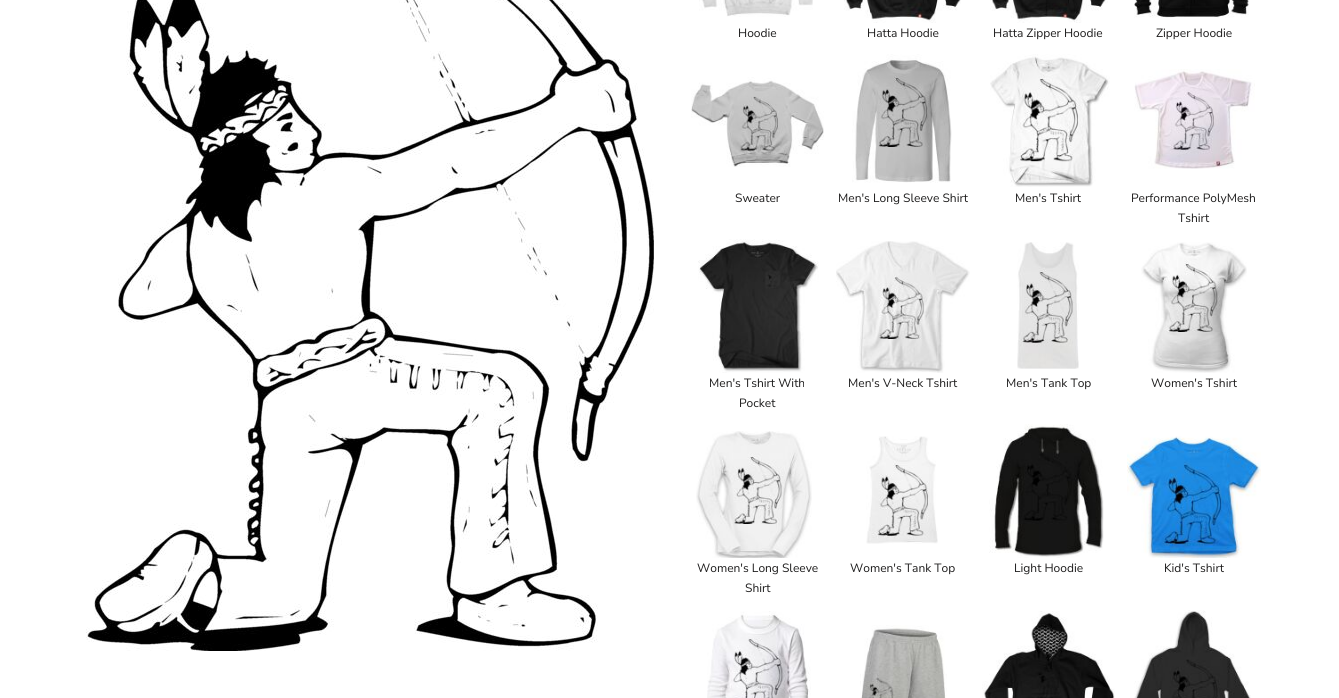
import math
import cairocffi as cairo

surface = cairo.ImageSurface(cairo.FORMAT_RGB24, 1339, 698)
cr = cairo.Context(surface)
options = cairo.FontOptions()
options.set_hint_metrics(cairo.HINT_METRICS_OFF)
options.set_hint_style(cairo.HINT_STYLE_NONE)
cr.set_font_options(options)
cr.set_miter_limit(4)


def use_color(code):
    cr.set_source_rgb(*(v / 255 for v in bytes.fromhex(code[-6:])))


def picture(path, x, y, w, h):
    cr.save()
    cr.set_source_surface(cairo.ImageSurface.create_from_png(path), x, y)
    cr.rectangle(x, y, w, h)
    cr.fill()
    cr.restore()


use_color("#ffffff")
cr.paint()
picture("img1.png", 86, 0, 568, 651)
picture("img2.png", 699, 0, 114, 17)
cr.select_font_face("Nunito Sans")
cr.set_font_size(12)
use_color("#1c1b1b")
cr.move_to(738, 37)
cr.show_text("Hoodie")
picture("img3.png", 844, 0, 117, 23)
cr.move_to(867, 37)
cr.show_text("Hatta Hoodie")
picture("img4.png", 990, 0, 118, 23)
cr.move_to(993, 37)
cr.show_text("Hatta Zipper Hoodie")
picture("img5.png", 1134, 0, 115, 18)
cr.move_to(1156, 37)
cr.show_text("Zipper Hoodie")
picture("img6.png", 691, 77, 133, 90)
cr.move_to(735, 202)
cr.show_text("Sweater")
picture("img7.png", 852, 54, 100, 129)
cr.move_to(838, 202)
cr.show_text("Men's Long Sleeve Shirt")
picture("img8.png", 990, 54, 120, 133)
cr.move_to(1015, 202)
cr.show_text("Men's Tshirt")
picture("img9.png", 1134, 69, 121, 100)
cr.move_to(1131, 202)
cr.show_text("Performance PolyMesh")
cr.move_to(1178, 222)
cr.show_text("Tshirt")
picture("img10.png", 698, 239, 121, 134)
cr.move_to(709, 387)
cr.show_text("Men's Tshirt With")
cr.move_to(739, 407)
cr.show_text("Pocket")
picture("img11.png", 836, 241, 134, 132)
cr.move_to(848, 387)
cr.show_text("Men's V-Neck Tshirt")
picture("img12.png", 1017, 242, 62, 127)
cr.move_to(1006, 387)
cr.show_text("Men's Tank Top")
picture("img13.png", 1141, 242, 106, 131)
cr.move_to(1151, 387)
cr.show_text("Women's Tshirt")
picture("img14.png", 696, 431, 116, 127)
cr.move_to(697, 572)
cr.show_text("Women's Long Sleeve")
cr.move_to(745, 592)
cr.show_text("Shirt")
picture("img15.png", 866, 436, 72, 108)
cr.move_to(850, 572)
cr.show_text("Women's Tank Top")
picture("img16.png", 989, 424, 115, 134)
cr.move_to(1014, 572)
cr.show_text("Light Hoodie")
picture("img17.png", 1127, 436, 134, 122)
cr.move_to(1164, 572)
cr.show_text("Kid's Tshirt")
picture("img18.png", 707, 611, 104, 87)
picture("img19.png", 860, 625, 87, 73)
picture("img20.png", 982, 611, 133, 87)
picture("img21.png", 1134, 610, 117, 88)
surface.write_to_png("result.png")
